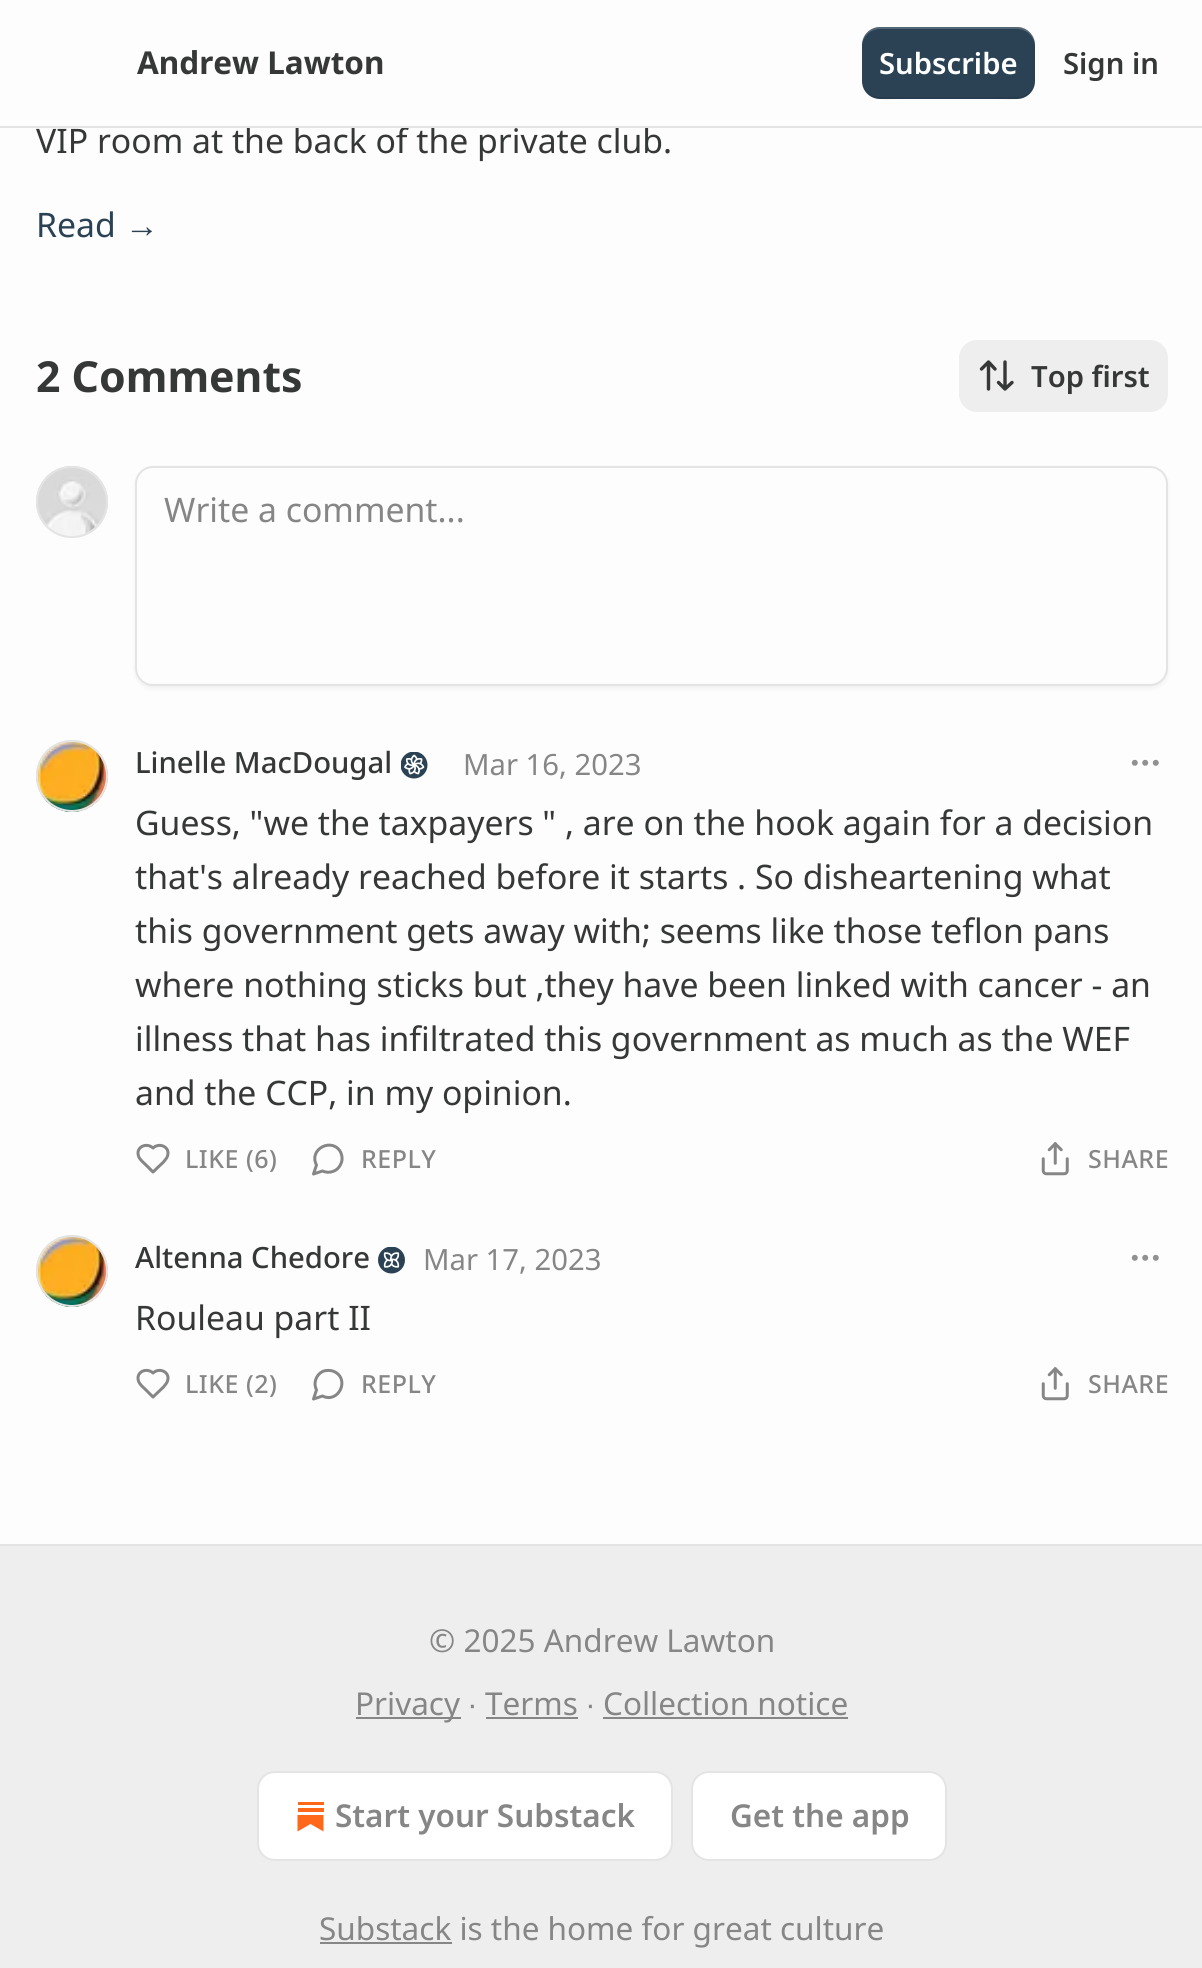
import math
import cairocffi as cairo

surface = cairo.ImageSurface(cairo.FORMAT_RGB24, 1202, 1968)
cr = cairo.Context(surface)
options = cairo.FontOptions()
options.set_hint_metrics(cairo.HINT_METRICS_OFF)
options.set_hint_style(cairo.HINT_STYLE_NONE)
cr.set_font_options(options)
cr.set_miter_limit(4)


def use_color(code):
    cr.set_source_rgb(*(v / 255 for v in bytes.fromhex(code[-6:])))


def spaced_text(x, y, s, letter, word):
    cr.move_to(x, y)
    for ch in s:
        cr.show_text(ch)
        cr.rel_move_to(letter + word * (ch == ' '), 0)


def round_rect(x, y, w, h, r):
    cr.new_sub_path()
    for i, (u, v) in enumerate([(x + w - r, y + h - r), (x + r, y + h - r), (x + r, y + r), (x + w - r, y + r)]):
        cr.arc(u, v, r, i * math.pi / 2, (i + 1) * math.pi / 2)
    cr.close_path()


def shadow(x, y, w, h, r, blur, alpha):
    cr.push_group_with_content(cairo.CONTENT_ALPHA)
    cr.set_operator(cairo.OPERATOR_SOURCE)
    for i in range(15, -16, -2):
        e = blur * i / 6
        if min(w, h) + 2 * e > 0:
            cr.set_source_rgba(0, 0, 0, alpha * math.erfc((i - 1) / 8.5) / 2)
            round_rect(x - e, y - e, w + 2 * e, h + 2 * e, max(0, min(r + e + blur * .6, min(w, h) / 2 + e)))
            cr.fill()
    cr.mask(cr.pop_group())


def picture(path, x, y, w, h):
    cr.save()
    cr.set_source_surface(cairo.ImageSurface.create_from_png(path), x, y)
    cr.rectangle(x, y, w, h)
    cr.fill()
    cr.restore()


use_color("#fdfdfd")
cr.paint()
cr.select_font_face("Noto Sans")
cr.set_font_size(33.75)
use_color("#363737")
cr.move_to(36, 153)
cr.show_text("VIP room at the back of the private club.")
use_color("#e4e4e4")
cr.rectangle(0, 126, 1202, 2)
cr.fill()
cr.select_font_face("Noto Sans", cairo.FONT_SLANT_NORMAL, cairo.FONT_WEIGHT_BOLD)
cr.set_font_size(31.5)
use_color("#363737")
cr.move_to(137, 74)
cr.show_text("Andrew Lawton")
use_color("#2b4255")
round_rect(862, 27, 173, 72, 18)
cr.fill()
cr.set_source_rgba(0, 0, 0, 0.1)
cr.new_path()
cr.move_to(862, 79)
cr.curve_to(862, 104, 885, 99, 903, 99)
cr.line_to(994, 99)
cr.curve_to(1012, 99, 1035, 104, 1035, 79)
cr.curve_to(1035, 89, 1027, 97, 1017, 97)
cr.line_to(880, 97)
cr.curve_to(870, 97, 862, 89, 862, 79)
cr.close_path()
cr.fill()
cr.set_source_rgba(1, 1, 1, 0.2)
cr.new_path()
cr.move_to(880, 29)
cr.line_to(1017, 29)
cr.curve_to(1027, 29, 1035, 37, 1035, 47)
cr.curve_to(1035, 22, 1012, 27, 994, 27)
cr.line_to(903, 27)
cr.curve_to(885, 27, 862, 22, 862, 47)
cr.curve_to(862, 37, 870, 29, 880, 29)
cr.close_path()
cr.fill()
cr.select_font_face("Noto Sans SemiBold")
cr.set_font_size(29.25)
use_color("#ffffff")
cr.move_to(879, 74)
cr.show_text("Subscribe")
use_color("#363737")
cr.move_to(1063, 74)
cr.show_text("Sign in")
cr.select_font_face("Noto Sans")
cr.set_font_size(33.75)
use_color("#2b4255")
cr.move_to(36, 237)
cr.show_text("Read")
cr.select_font_face("Liberation Sans")
cr.move_to(125, 237)
cr.show_text("→")
cr.select_font_face("Noto Sans", cairo.FONT_SLANT_NORMAL, cairo.FONT_WEIGHT_BOLD)
cr.set_font_size(42.75)
use_color("#363737")
cr.move_to(36, 392)
cr.show_text("2 Comments")
use_color("#eeeeee")
round_rect(959, 340, 209, 72, 18)
cr.fill()
cr.new_path()
cr.move_to(1012, 382.5)
cr.line_to(1005, 389)
cr.line_to(998.5, 382.5)
cr.move_to(1005, 389)
cr.line_to(1005, 362)
cr.move_to(981.5, 369)
cr.line_to(988.5, 362)
cr.line_to(995, 369)
cr.move_to(988.5, 362)
cr.line_to(988.5, 389)
use_color("#363737")
cr.set_line_width(3.4)
cr.set_line_cap(cairo.LINE_CAP_ROUND)
cr.set_line_join(cairo.LINE_JOIN_ROUND)
cr.stroke()
cr.select_font_face("Noto Sans SemiBold")
cr.set_font_size(29.25)
cr.move_to(1031, 387)
cr.show_text("Top first")
cr.new_path()
cr.arc(72, 502, 35, 0, 2 * math.pi)
use_color("#e4e4e4")
cr.set_line_width(2)
cr.set_line_cap(cairo.LINE_CAP_BUTT)
cr.set_line_join(cairo.LINE_JOIN_MITER)
cr.stroke()
picture("img1.png", 36, 466, 72, 71)
cr.arc(72, 502, 35, 0, 2 * math.pi)
cr.stroke()
use_color("#000000")
shadow(135, 468, 1033, 221, 18, 2, 0.05)
use_color("#fdfdfd")
round_rect(136, 467, 1031, 218, 17)
cr.fill_preserve()
use_color("#e4e4e4")
cr.stroke()
cr.select_font_face("Noto Sans")
cr.set_font_size(33.75)
use_color("#868686")
cr.move_to(164, 522)
cr.show_text("Write a comment...")
cr.new_path()
cr.arc(72, 776, 35, 0, 2 * math.pi)
use_color("#e4e4e4")
cr.stroke()
picture("img2.png", 36, 740, 72, 72)
cr.arc(72, 776, 35, 0, 2 * math.pi)
cr.stroke()
cr.select_font_face("Noto Sans Medium")
cr.set_font_size(29.25)
use_color("#363737")
cr.move_to(135, 773)
cr.show_text("Linelle MacDougal")
picture("img3.png", 401, 752, 27, 27)
cr.select_font_face("Noto Sans")
use_color("#868686")
cr.move_to(463, 775)
cr.show_text("Mar 16, 2023")
cr.new_path()
cr.arc(1145.2, 762.8, 1.5, 0, 2 * math.pi)
use_color("#919191")
cr.set_line_width(3)
cr.stroke()
cr.arc(1155.8, 762.8, 1.5, 0, 2 * math.pi)
cr.stroke()
cr.arc(1134.8, 762.8, 1.5, 0, 2 * math.pi)
cr.stroke()
cr.set_font_size(33.75)
use_color("#363737")
cr.move_to(135, 835)
cr.show_text("Guess, \"we the taxpayers \" , are on the hook again for a decision")
cr.move_to(135, 889)
cr.show_text("that's already reached before it starts . So disheartening what")
cr.move_to(135, 943)
cr.show_text("this government gets away with; seems like those teflon pans")
cr.move_to(135, 997)
cr.show_text("where nothing sticks but ,they have been linked with cancer - an")
cr.move_to(135, 1051)
cr.show_text("illness that has infiltrated this government as much as the WEF")
cr.move_to(135, 1105)
cr.show_text("and the CCP, in my opinion.")
cr.new_path()
cr.move_to(163.5, 1162)
cr.curve_to(165, 1160, 167, 1158, 167.5, 1156)
cr.curve_to(170.5, 1147, 159.5, 1142, 153, 1148)
cr.curve_to(146.5, 1142, 135.5, 1147, 138.5, 1156)
cr.curve_to(139.5, 1159.5, 143.5, 1162.5, 146, 1165)
cr.line_to(153, 1172)
cr.close_path()
use_color("#868686")
cr.set_line_cap(cairo.LINE_CAP_ROUND)
cr.set_line_join(cairo.LINE_JOIN_ROUND)
cr.stroke()
cr.select_font_face("Noto Sans Medium")
cr.set_font_size(25)
spaced_text(185, 1168, "LIKE (6)", 0.5, 0)
cr.new_path()
cr.move_to(322.5, 1171)
cr.curve_to(329, 1174, 337.5, 1171.5, 340.5, 1164.5)
cr.curve_to(342.5, 1161, 342.5, 1157, 341, 1153)
cr.curve_to(333.5, 1136.5, 308, 1148.5, 316.5, 1165)
cr.line_to(313.5, 1174)
cr.close_path()
cr.stroke()
spaced_text(361, 1168, "REPLY", 0.5, 0)
picture("img4.png", 1041, 1142, 28, 34)
spaced_text(1088, 1168, "SHARE", 0.5, 0)
cr.new_path()
cr.arc(72, 1271, 35, 0, 2 * math.pi)
use_color("#e4e4e4")
cr.set_line_width(2)
cr.set_line_cap(cairo.LINE_CAP_BUTT)
cr.set_line_join(cairo.LINE_JOIN_MITER)
cr.stroke()
picture("img5.png", 36, 1235, 72, 72)
cr.arc(72, 1271, 35, 0, 2 * math.pi)
cr.stroke()
cr.set_font_size(29.25)
use_color("#363737")
cr.move_to(135, 1268)
cr.show_text("Altenna Chedore")
picture("img6.png", 378, 1247, 27, 27)
cr.select_font_face("Noto Sans")
use_color("#868686")
cr.move_to(423, 1270)
cr.show_text("Mar 17, 2023")
cr.new_path()
cr.arc(1145.2, 1257.8, 1.5, 0, 2 * math.pi)
use_color("#919191")
cr.set_line_width(3)
cr.stroke()
cr.arc(1155.8, 1257.8, 1.5, 0, 2 * math.pi)
cr.stroke()
cr.arc(1134.8, 1257.8, 1.5, 0, 2 * math.pi)
cr.stroke()
cr.set_font_size(33.75)
use_color("#363737")
cr.move_to(135, 1330)
cr.show_text("Rouleau part II")
cr.new_path()
cr.move_to(163.5, 1387)
cr.curve_to(165, 1385, 167, 1383, 167.5, 1381)
cr.curve_to(170.5, 1372, 159.5, 1367, 153, 1373)
cr.curve_to(146.5, 1367, 135.5, 1372, 138.5, 1381)
cr.curve_to(139.5, 1384.5, 143.5, 1387.5, 146, 1390)
cr.line_to(153, 1397)
cr.close_path()
use_color("#868686")
cr.set_line_cap(cairo.LINE_CAP_ROUND)
cr.set_line_join(cairo.LINE_JOIN_ROUND)
cr.stroke()
cr.select_font_face("Noto Sans Medium")
cr.set_font_size(25)
spaced_text(185, 1393, "LIKE (2)", 0.5, 0)
cr.new_path()
cr.move_to(322.5, 1396)
cr.curve_to(338.5, 1404, 350.5, 1379, 334, 1371.5)
cr.curve_to(330.5, 1370, 326, 1370, 322.5, 1371.5)
cr.curve_to(316, 1375, 313, 1383, 316.5, 1390)
cr.line_to(313.5, 1399)
cr.close_path()
cr.stroke()
spaced_text(361, 1393, "REPLY", 0.5, 0)
picture("img4.png", 1041, 1367, 28, 34)
spaced_text(1088, 1393, "SHARE", 0.5, 0)
use_color("#eeeeee")
cr.rectangle(0, 1546, 1202, 422)
cr.fill()
use_color("#e4e4e4")
cr.rectangle(0, 1544, 1202, 2)
cr.fill()
cr.select_font_face("Noto Sans")
cr.set_font_size(31.5)
use_color("#868686")
cr.move_to(429, 1652)
cr.show_text("© 2025 Andrew Lawton")
cr.rectangle(356, 1717, 105, 2)
cr.fill()
cr.move_to(355, 1715)
cr.show_text("Privacy")
cr.select_font_face("Liberation Sans")
cr.move_to(468, 1715)
cr.show_text("∙")
cr.select_font_face("Noto Sans")
cr.move_to(485, 1715)
cr.show_text("Terms")
cr.rectangle(486, 1717, 92, 2)
cr.fill()
cr.select_font_face("Liberation Sans")
cr.move_to(586, 1715)
cr.show_text("∙")
cr.select_font_face("Noto Sans")
cr.move_to(603, 1715)
cr.show_text("Collection notice")
cr.rectangle(603, 1717, 245, 2)
cr.fill()
use_color("#ffffff")
round_rect(258, 1772, 414, 88, 17)
cr.fill_preserve()
use_color("#e4e4e4")
cr.set_line_width(2)
cr.set_line_cap(cairo.LINE_CAP_BUTT)
cr.set_line_join(cairo.LINE_JOIN_MITER)
cr.stroke()
use_color("#ff6719")
cr.rectangle(298, 1808, 26, 4)
cr.fill()
cr.new_path()
cr.move_to(297.5, 1815)
cr.line_to(297.5, 1831.5)
cr.line_to(310.5, 1824)
cr.line_to(323.5, 1831.5)
cr.line_to(323.5, 1815)
cr.close_path()
cr.fill()
cr.rectangle(298, 1802, 26, 3)
cr.fill()
cr.select_font_face("Noto Sans SemiBold")
use_color("#868686")
cr.move_to(335, 1827)
cr.show_text("Start your Substack")
use_color("#ffffff")
round_rect(692, 1772, 254, 88, 17)
cr.fill_preserve()
use_color("#e4e4e4")
cr.stroke()
use_color("#868686")
cr.move_to(730, 1827)
cr.show_text("Get the app")
cr.rectangle(320, 1942, 132, 2)
cr.fill()
cr.select_font_face("Noto Sans")
cr.move_to(319, 1940)
cr.show_text("Substack is the home for great culture")
surface.write_to_png("result.png")
